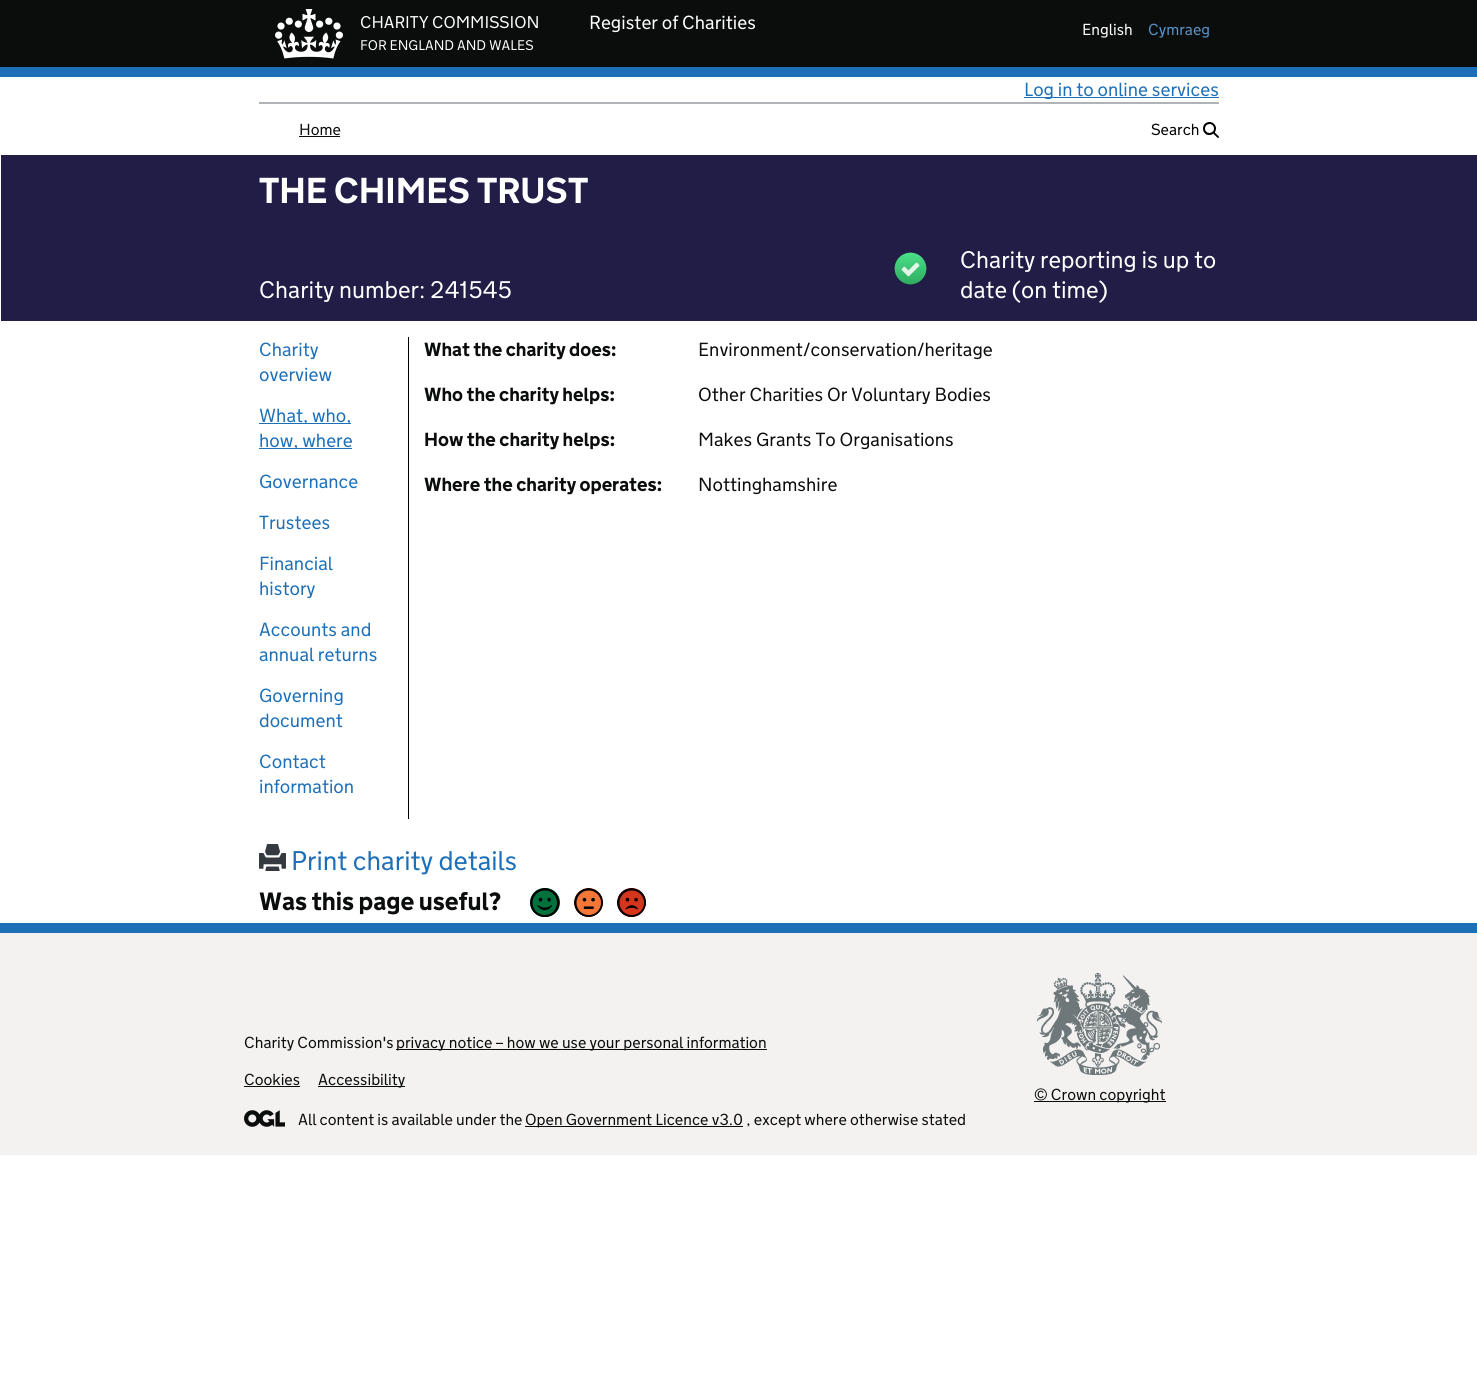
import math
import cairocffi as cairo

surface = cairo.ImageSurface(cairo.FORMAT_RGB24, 1477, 1388)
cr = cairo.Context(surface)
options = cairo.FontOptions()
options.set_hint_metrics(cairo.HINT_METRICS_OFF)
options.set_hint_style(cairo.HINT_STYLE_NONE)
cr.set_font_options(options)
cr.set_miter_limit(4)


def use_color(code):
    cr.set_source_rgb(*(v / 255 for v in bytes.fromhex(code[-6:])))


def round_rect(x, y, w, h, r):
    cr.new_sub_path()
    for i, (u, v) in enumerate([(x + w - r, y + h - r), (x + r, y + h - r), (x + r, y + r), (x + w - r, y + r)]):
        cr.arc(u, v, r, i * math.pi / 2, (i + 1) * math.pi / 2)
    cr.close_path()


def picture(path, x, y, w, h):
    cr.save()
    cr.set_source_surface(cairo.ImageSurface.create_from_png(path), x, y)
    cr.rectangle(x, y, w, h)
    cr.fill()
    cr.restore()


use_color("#ffffff")
cr.paint()
use_color("#0b0c0c")
cr.rectangle(0, 0, 1477, 67)
cr.fill()
use_color("#1d70b8")
cr.rectangle(0, 67, 1477, 10)
cr.fill()
picture("img1.png", 275, 9, 68, 50)
cr.select_font_face("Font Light")
cr.set_font_size(17)
use_color("#ffffff")
cr.move_to(360, 28)
cr.show_text("CHARITY COMMISSION")
cr.set_font_size(14)
cr.move_to(360, 50)
cr.show_text("FOR ENGLAND AND WALES")
cr.set_font_size(19)
cr.move_to(589, 29)
cr.show_text("Register of Charities")
cr.set_font_size(16)
cr.move_to(1082, 35)
cr.show_text("English")
use_color("#5694ca")
cr.move_to(1148, 35)
cr.show_text("Cymraeg")
use_color("#b1b4b6")
cr.rectangle(259, 102, 960, 2)
cr.fill()
use_color("#1d70b8")
cr.rectangle(1024, 97, 195, 1)
cr.fill()
cr.set_font_size(19)
cr.move_to(1024, 96)
cr.show_text("Log in to online services")
cr.set_font_size(16)
use_color("#0b0c0c")
cr.move_to(299, 135)
cr.show_text("Home")
cr.rectangle(299, 136, 41, 1)
cr.fill()
use_color("#000000")
cr.move_to(1151, 135)
cr.show_text("Search")
picture("img2.png", 1203, 122, 16, 16)
use_color("#211d47")
cr.rectangle(1, 155, 1476, 166)
cr.fill()
cr.select_font_face("Font", cairo.FONT_SLANT_NORMAL, cairo.FONT_WEIGHT_BOLD)
cr.set_font_size(36)
use_color("#ffffff")
cr.move_to(259, 203)
cr.show_text("THE CHIMES TRUST")
cr.select_font_face("Font Light")
cr.set_font_size(24)
cr.move_to(259, 298)
cr.show_text("Charity number: 241545")
picture("img3.png", 894, 252, 33, 33)
cr.move_to(960, 268)
cr.show_text("Charity reporting is up to")
cr.move_to(960, 298)
cr.show_text("date (on time)")
use_color("#000000")
cr.rectangle(408, 337, 1, 482)
cr.fill()
cr.set_font_size(19)
use_color("#1d70b8")
cr.move_to(259, 356)
cr.show_text("Charity")
cr.move_to(259, 381)
cr.show_text("overview")
cr.rectangle(259, 423, 92, 1)
cr.fill()
cr.move_to(259, 422)
cr.show_text("What, who,")
cr.rectangle(259, 448, 93, 1)
cr.fill()
cr.move_to(259, 447)
cr.show_text("how, where")
cr.move_to(259, 488)
cr.show_text("Governance")
cr.move_to(259, 529)
cr.show_text("Trustees")
cr.move_to(259, 570)
cr.show_text("Financial")
cr.move_to(259, 595)
cr.show_text("history")
cr.move_to(259, 636)
cr.show_text("Accounts and")
cr.move_to(259, 661)
cr.show_text("annual returns")
cr.move_to(259, 702)
cr.show_text("Governing")
cr.move_to(259, 727)
cr.show_text("document")
cr.move_to(259, 768)
cr.show_text("Contact")
cr.move_to(259, 793)
cr.show_text("information")
cr.select_font_face("Font", cairo.FONT_SLANT_NORMAL, cairo.FONT_WEIGHT_BOLD)
use_color("#0b0c0c")
cr.move_to(424, 356)
cr.show_text("What the charity does:")
cr.select_font_face("Font Light")
cr.move_to(698, 356)
cr.show_text("Environment/conservation/heritage")
cr.select_font_face("Font", cairo.FONT_SLANT_NORMAL, cairo.FONT_WEIGHT_BOLD)
cr.move_to(424, 401)
cr.show_text("Who the charity helps:")
cr.select_font_face("Font Light")
cr.move_to(698, 401)
cr.show_text("Other Charities Or Voluntary Bodies")
cr.select_font_face("Font", cairo.FONT_SLANT_NORMAL, cairo.FONT_WEIGHT_BOLD)
cr.move_to(424, 446)
cr.show_text("How the charity helps:")
cr.select_font_face("Font Light")
cr.move_to(698, 446)
cr.show_text("Makes Grants To Organisations")
cr.select_font_face("Font", cairo.FONT_SLANT_NORMAL, cairo.FONT_WEIGHT_BOLD)
cr.move_to(424, 491)
cr.show_text("Where the charity operates:")
cr.select_font_face("Font Light")
cr.move_to(698, 491)
cr.show_text("Nottinghamshire")
picture("img4.png", 259, 844, 27, 27)
cr.set_font_size(27)
use_color("#1d70b8")
cr.move_to(291, 870)
cr.show_text("Print charity details")
cr.select_font_face("Font", cairo.FONT_SLANT_NORMAL, cairo.FONT_WEIGHT_BOLD)
cr.set_font_size(25)
use_color("#0b0c0c")
cr.move_to(259, 910)
cr.show_text("Was this page useful?")
use_color("#00703c")
round_rect(530, 888, 30, 29, 14.5)
cr.fill()
picture("img5.png", 530, 888, 30, 29)
use_color("#f47738")
cr.arc(588.5, 902.5, 14.5, 0, 2 * math.pi)
cr.fill()
picture("img6.png", 574, 888, 29, 29)
use_color("#d4351c")
cr.arc(631.5, 902.5, 14.5, 0, 2 * math.pi)
cr.fill()
picture("img7.png", 617, 888, 29, 29)
use_color("#f3f2f1")
cr.rectangle(0, 933, 1477, 222)
cr.fill()
use_color("#1d70b8")
cr.rectangle(0, 923, 1477, 10)
cr.fill()
cr.select_font_face("Font Light")
cr.set_font_size(16)
use_color("#0b0c0c")
cr.move_to(244, 1048)
cr.show_text("Charity Commission's")
cr.rectangle(396, 1049, 371, 1)
cr.fill()
cr.move_to(396, 1048)
cr.show_text("privacy notice – how we use your personal information")
cr.move_to(244, 1085)
cr.show_text("Cookies")
cr.rectangle(244, 1086, 56, 1)
cr.fill()
cr.rectangle(318, 1086, 87, 1)
cr.fill()
cr.move_to(318, 1085)
cr.show_text("Accessibility")
picture("img8.png", 244, 1110, 41, 17)
cr.move_to(298, 1125)
cr.show_text("All content is available under the")
cr.rectangle(525, 1126, 218, 1)
cr.fill()
cr.move_to(525, 1125)
cr.show_text("Open Government Licence v3.0 , except where otherwise stated")
picture("img9.png", 1037, 973, 125, 102)
cr.rectangle(1034, 1101, 132, 1)
cr.fill()
cr.move_to(1034, 1100)
cr.show_text("© Crown copyright")
surface.write_to_png("result.png")
